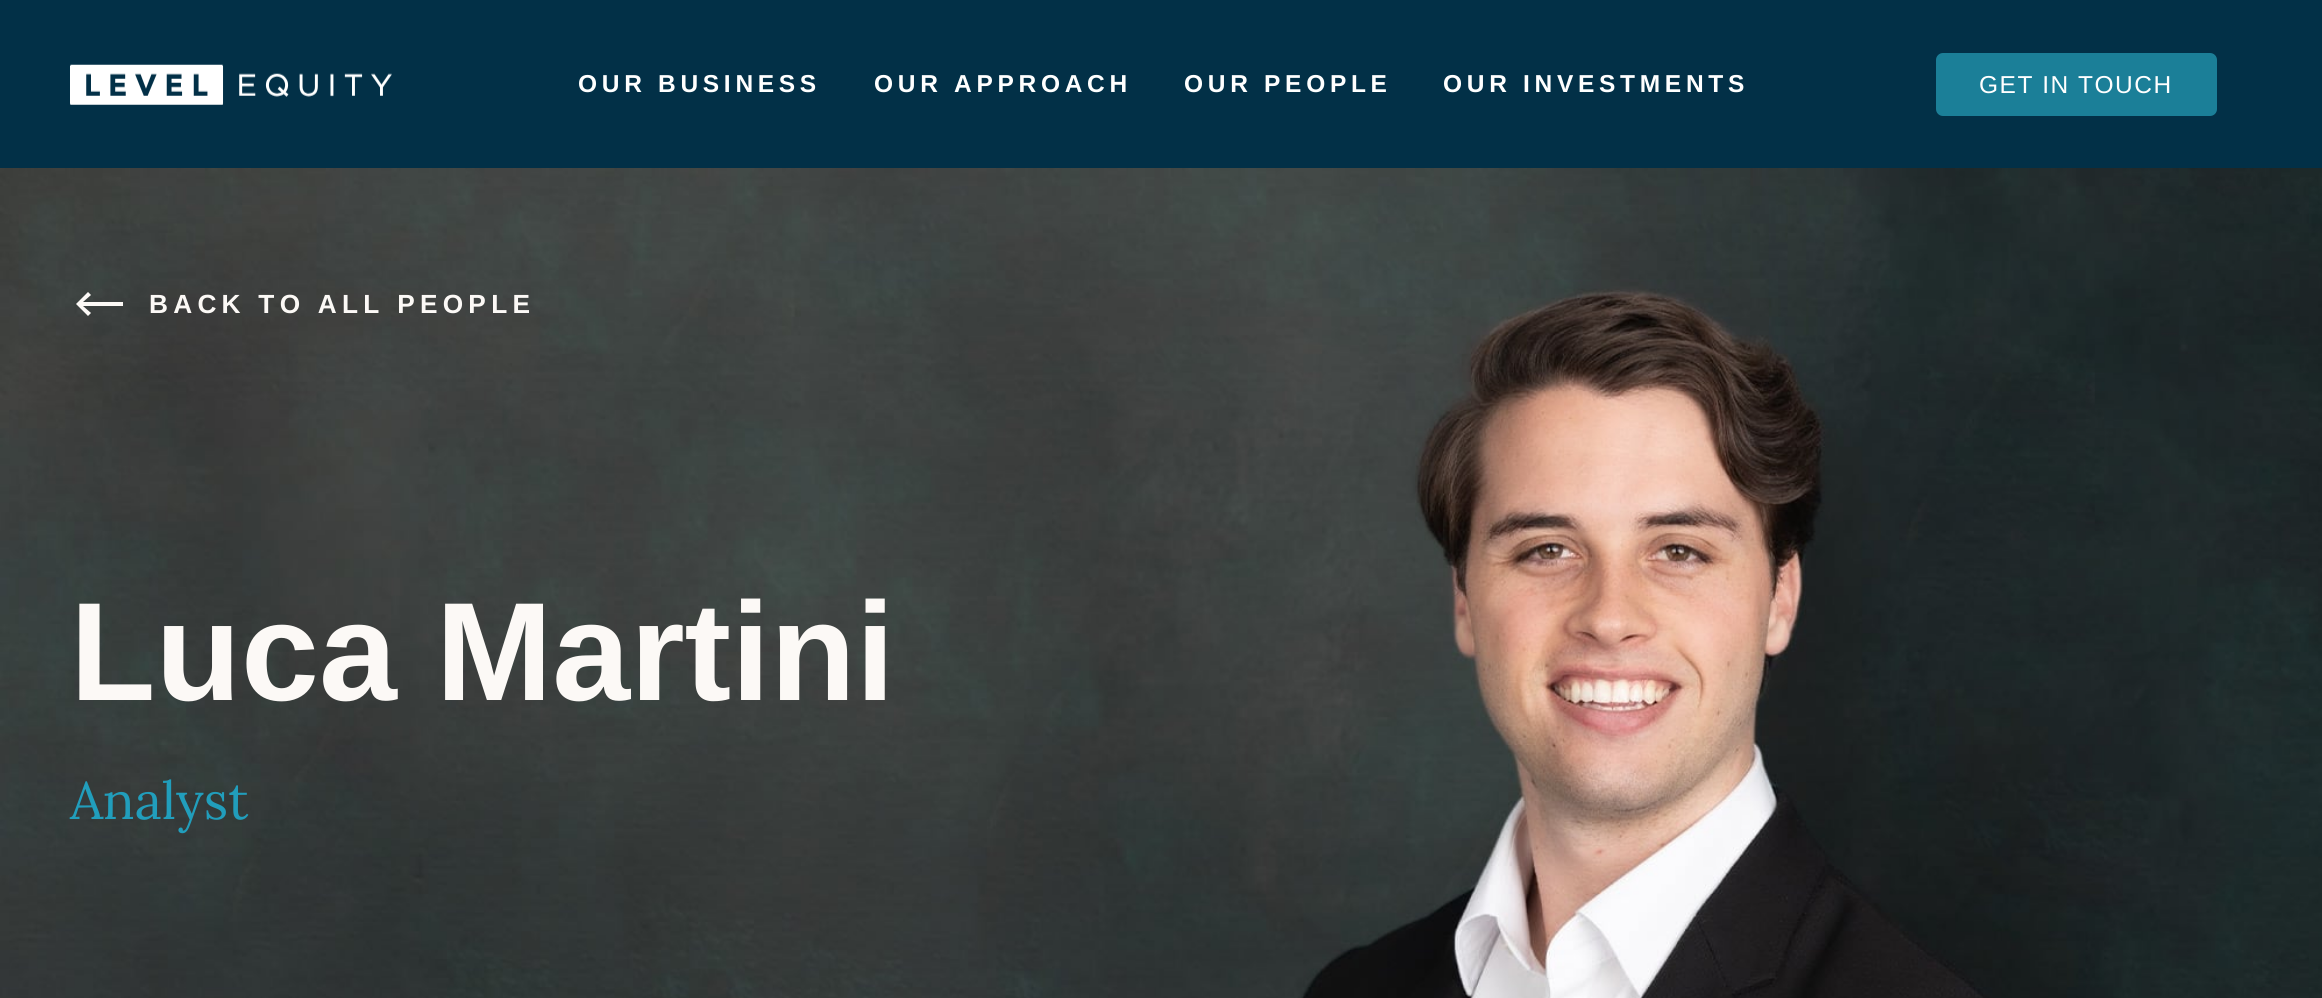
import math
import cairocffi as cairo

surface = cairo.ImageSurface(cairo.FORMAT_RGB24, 2322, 998)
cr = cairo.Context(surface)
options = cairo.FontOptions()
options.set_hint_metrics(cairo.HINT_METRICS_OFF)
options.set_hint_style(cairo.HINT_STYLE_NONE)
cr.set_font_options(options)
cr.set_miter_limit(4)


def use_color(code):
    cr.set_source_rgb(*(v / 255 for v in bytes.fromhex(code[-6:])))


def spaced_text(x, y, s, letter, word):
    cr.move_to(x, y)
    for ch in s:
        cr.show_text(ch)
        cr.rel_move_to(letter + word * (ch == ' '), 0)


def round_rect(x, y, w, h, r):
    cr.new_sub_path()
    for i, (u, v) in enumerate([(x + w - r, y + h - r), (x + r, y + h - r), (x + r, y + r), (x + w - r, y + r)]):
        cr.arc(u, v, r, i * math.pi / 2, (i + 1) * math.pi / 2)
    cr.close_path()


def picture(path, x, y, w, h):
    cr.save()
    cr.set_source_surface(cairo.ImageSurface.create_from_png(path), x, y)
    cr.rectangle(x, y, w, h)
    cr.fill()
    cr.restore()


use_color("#ffffff")
cr.paint()
use_color("#023047")
cr.rectangle(0, 0, 2322, 168)
cr.fill()
picture("img1.png", 70, 64, 322, 41)
cr.select_font_face("Liberation Sans", cairo.FONT_SLANT_NORMAL, cairo.FONT_WEIGHT_BOLD)
cr.set_font_size(24.5)
use_color("#ffffff")
spaced_text(578, 92, "OUR BUSINESS", 4.7, 0)
spaced_text(874, 92, "OUR APPROACH", 4.7, 0)
spaced_text(1184, 92, "OUR PEOPLE", 4.7, 0)
spaced_text(1443, 92, "OUR INVESTMENTS", 4.7, 0)
use_color("#1b7f98")
round_rect(1936, 53, 281, 63, 7)
cr.fill()
cr.select_font_face("Liberation Sans")
use_color("#ffffff")
spaced_text(1979, 93, "GET IN TOUCH", 1.5, 0)
picture("img2.png", 0, 168, 2322, 830)
use_color("#fcf9f6")
cr.new_path()
cr.move_to(89, 315)
cr.line_to(91, 313)
cr.line_to(83, 306)
cr.line_to(123, 306)
cr.line_to(123, 302)
cr.line_to(83, 302)
cr.line_to(91, 295)
cr.line_to(88, 292)
cr.line_to(76, 304)
cr.line_to(88, 316)
cr.close_path()
cr.fill()
cr.select_font_face("Liberation Sans", cairo.FONT_SLANT_NORMAL, cairo.FONT_WEIGHT_BOLD)
cr.set_font_size(26.25)
spaced_text(149, 313, "BACK TO ALL PEOPLE", 5.25, 0)
cr.set_font_size(140)
cr.move_to(70, 700)
cr.show_text("Luca Martini")
cr.select_font_face("Lora")
cr.set_font_size(52.5)
use_color("#219ebc")
cr.move_to(70, 819)
cr.show_text("Analyst")
surface.write_to_png("result.png")
